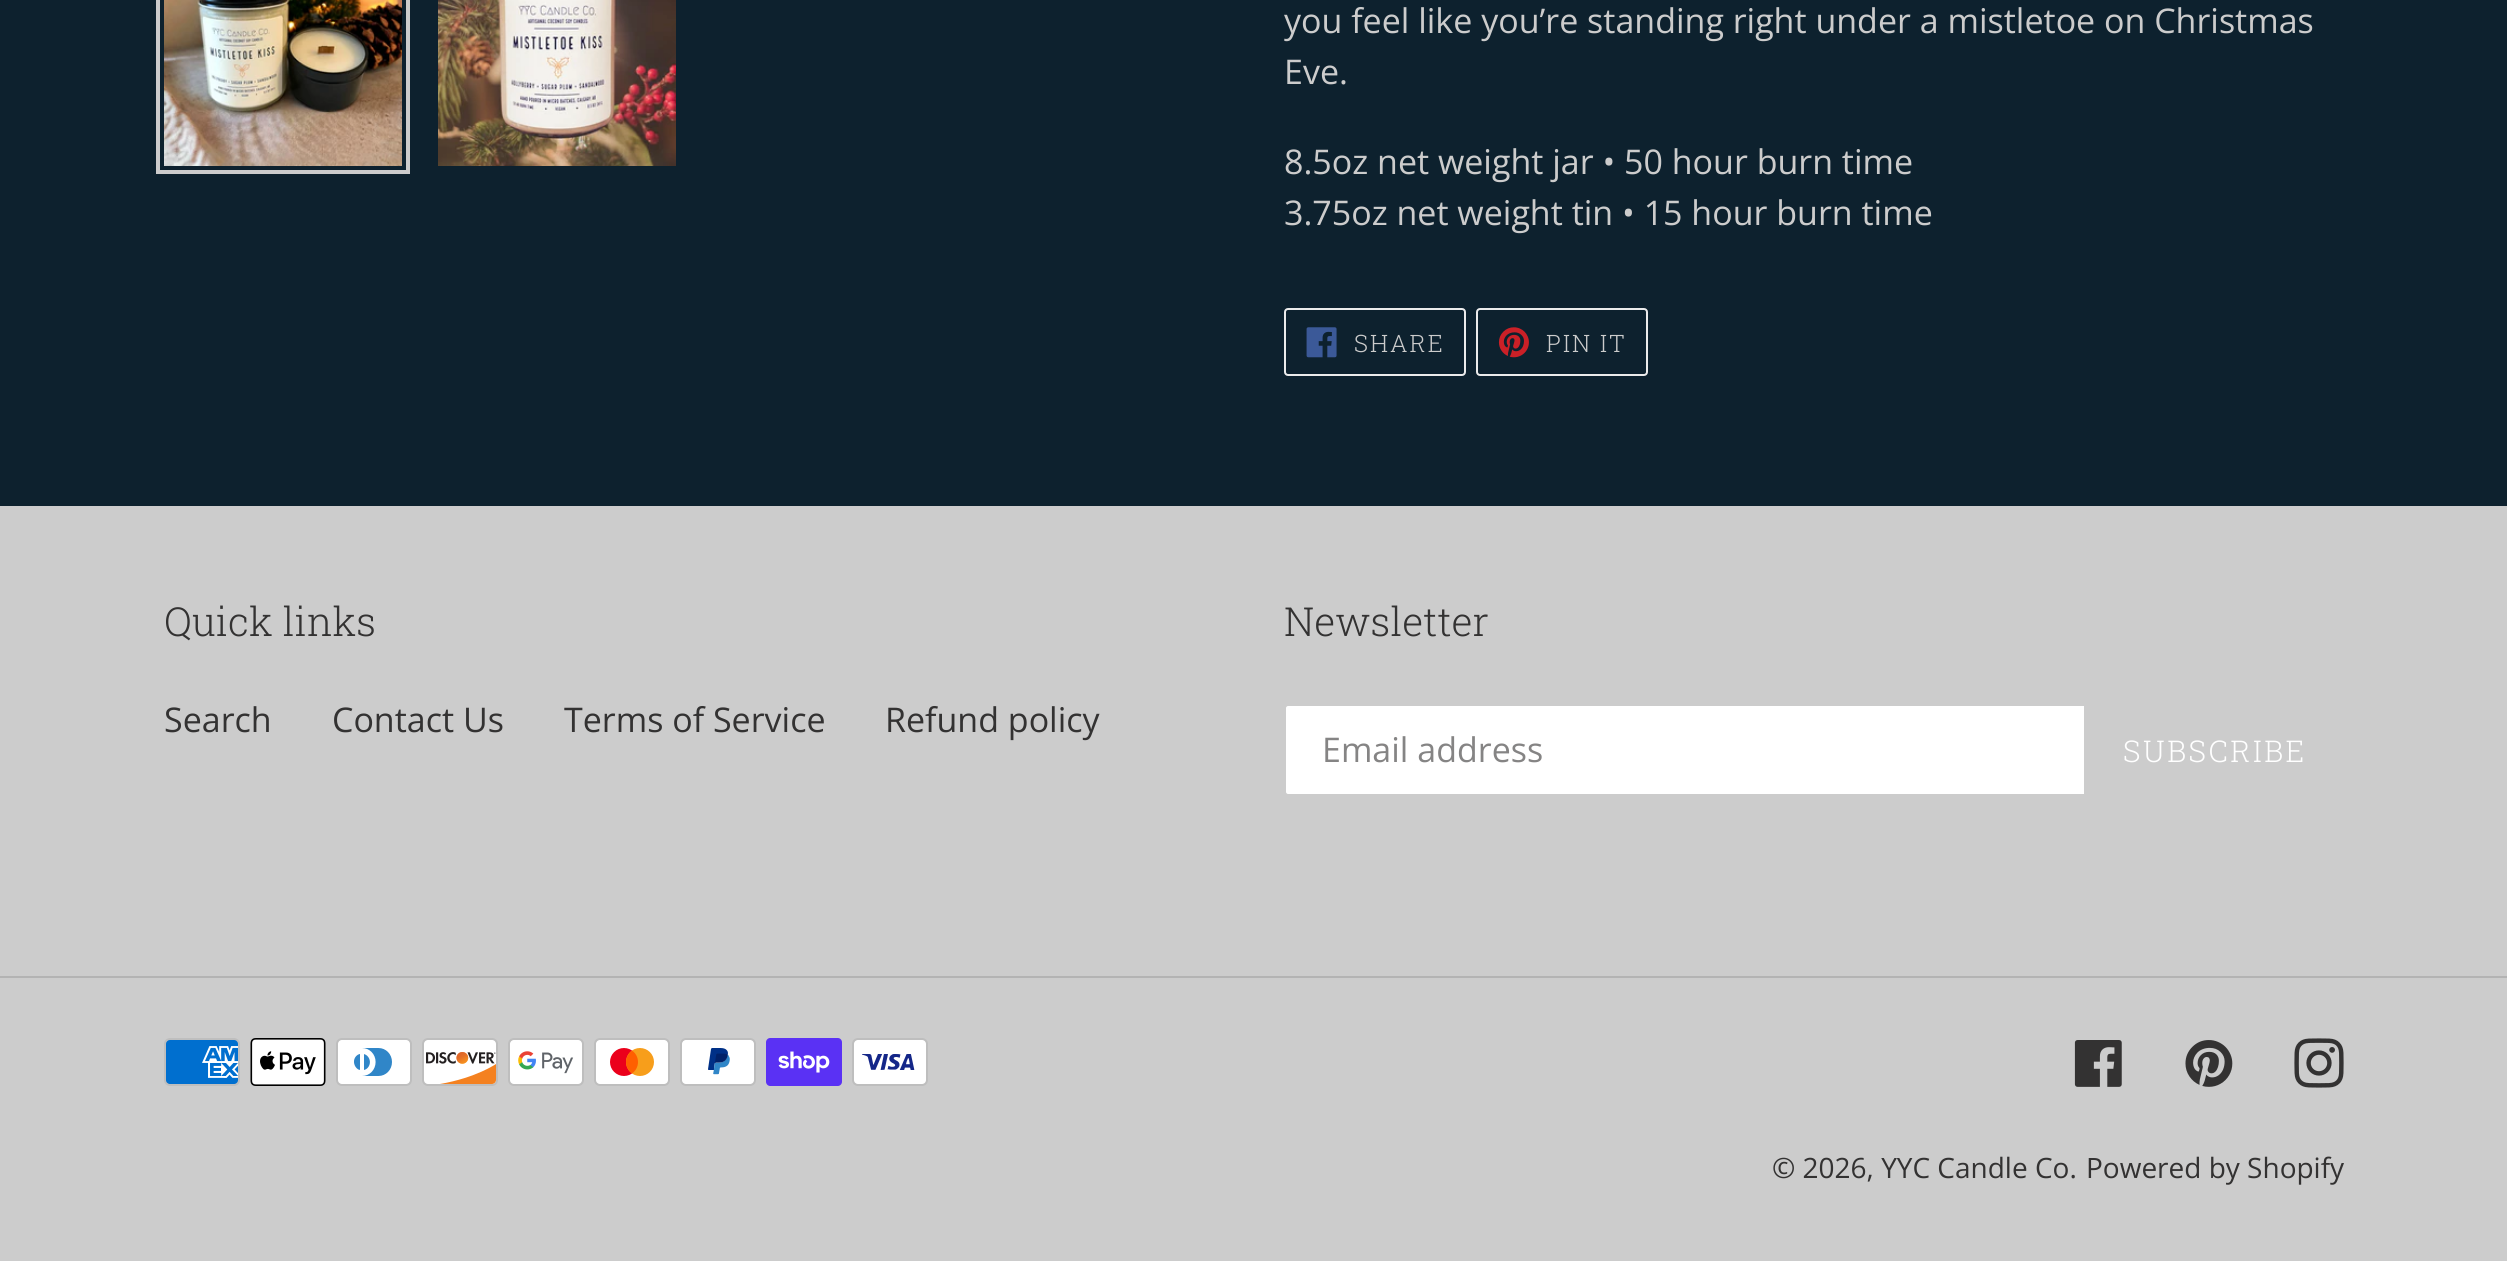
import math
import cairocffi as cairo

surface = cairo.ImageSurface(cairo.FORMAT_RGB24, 2507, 1261)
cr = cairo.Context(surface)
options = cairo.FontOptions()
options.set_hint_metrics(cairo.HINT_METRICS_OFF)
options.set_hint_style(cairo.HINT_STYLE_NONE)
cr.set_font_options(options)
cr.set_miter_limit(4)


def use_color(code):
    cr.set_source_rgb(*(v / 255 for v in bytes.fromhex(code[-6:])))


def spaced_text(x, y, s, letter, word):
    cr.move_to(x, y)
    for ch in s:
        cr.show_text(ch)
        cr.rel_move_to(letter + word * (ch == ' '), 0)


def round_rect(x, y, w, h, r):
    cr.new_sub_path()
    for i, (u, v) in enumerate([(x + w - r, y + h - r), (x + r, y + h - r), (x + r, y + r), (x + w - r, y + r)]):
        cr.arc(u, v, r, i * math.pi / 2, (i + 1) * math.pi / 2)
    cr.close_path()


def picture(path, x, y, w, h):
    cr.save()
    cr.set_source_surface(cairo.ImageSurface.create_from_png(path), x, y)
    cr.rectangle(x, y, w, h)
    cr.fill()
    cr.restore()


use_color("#0d212e")
cr.paint()
cr.rectangle(158, -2, 250, 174)
use_color("#cccccc")
cr.set_line_width(4)
cr.stroke()
picture("img1.png", 164, 0, 238, 166)
picture("img2.png", 438, 0, 238, 166)
cr.select_font_face("Open Sans")
cr.set_font_size(34)
cr.move_to(1284, 33)
cr.show_text("you feel like you’re standing right under a mistletoe on Christmas")
cr.move_to(1284, 84)
cr.show_text("Eve.")
cr.move_to(1284, 174)
cr.show_text("8.5oz net weight jar • 50 hour burn time")
cr.move_to(1284, 225)
cr.show_text("3.75oz net weight tin • 15 hour burn time")
round_rect(1285, 309, 180, 66, 3)
use_color("#ebebeb")
cr.set_line_width(2)
cr.stroke()
picture("img3.png", 1306, 327, 31, 31)
cr.select_font_face("Roboto Slab Light")
cr.set_font_size(24)
use_color("#cccccc")
spaced_text(1354, 352, "SHARE", 2, 0)
round_rect(1477, 309, 170, 66, 3)
use_color("#ebebeb")
cr.stroke()
picture("img4.png", 1498, 327, 31, 31)
use_color("#cccccc")
spaced_text(1546, 352, "PIN IT", 2, 0)
cr.rectangle(0, 506, 2507, 755)
cr.fill()
cr.set_font_size(40)
use_color("#333232")
cr.move_to(164, 636)
cr.show_text("Quick links")
cr.select_font_face("Open Sans")
cr.set_font_size(34)
cr.move_to(164, 732)
cr.show_text("Search")
cr.move_to(332, 732)
cr.show_text("Contact Us")
cr.move_to(564, 732)
cr.show_text("Terms of Service")
cr.move_to(885, 732)
cr.show_text("Refund policy")
cr.select_font_face("Roboto Slab Light")
cr.set_font_size(40)
cr.move_to(1284, 636)
cr.show_text("Newsletter")
use_color("#ffffff")
cr.new_path()
cr.move_to(1288, 705)
cr.line_to(2085, 705)
cr.line_to(2085, 795)
cr.line_to(1288, 795)
cr.curve_to(1286.5, 795, 1285, 793.5, 1285, 792)
cr.line_to(1285, 708)
cr.curve_to(1285, 706.5, 1286.5, 705, 1288, 705)
cr.close_path()
cr.fill_preserve()
use_color("#cccccc")
cr.stroke()
cr.select_font_face("Open Sans")
cr.set_font_size(34)
use_color("#858484")
cr.move_to(1322, 762)
cr.show_text("Email address")
cr.select_font_face("Roboto Slab Light")
cr.set_font_size(30)
use_color("#ffffff")
spaced_text(2123, 762, "SUBSCRIBE", 2.5, 0)
use_color("#b3b3b3")
cr.rectangle(0, 976, 2507, 2)
cr.fill()
picture("img5.png", 164, 1038, 76, 48)
picture("img6.png", 250, 1038, 76, 48)
picture("img7.png", 336, 1038, 76, 48)
picture("img8.png", 422, 1038, 76, 48)
picture("img9.png", 508, 1038, 76, 48)
picture("img10.png", 594, 1038, 76, 48)
picture("img11.png", 680, 1038, 76, 48)
picture("img12.png", 766, 1038, 76, 48)
picture("img13.png", 852, 1038, 76, 48)
picture("img14.png", 2074, 1040, 48, 47)
picture("img15.png", 2185, 1040, 48, 47)
picture("img16.png", 2294, 1038, 50, 50)
cr.select_font_face("Open Sans")
cr.set_font_size(28)
use_color("#333232")
cr.move_to(1772, 1178)
cr.show_text("© 2026, YYC Candle Co.")
cr.move_to(2086, 1178)
cr.show_text("Powered by Shopify")
surface.write_to_png("result.png")
